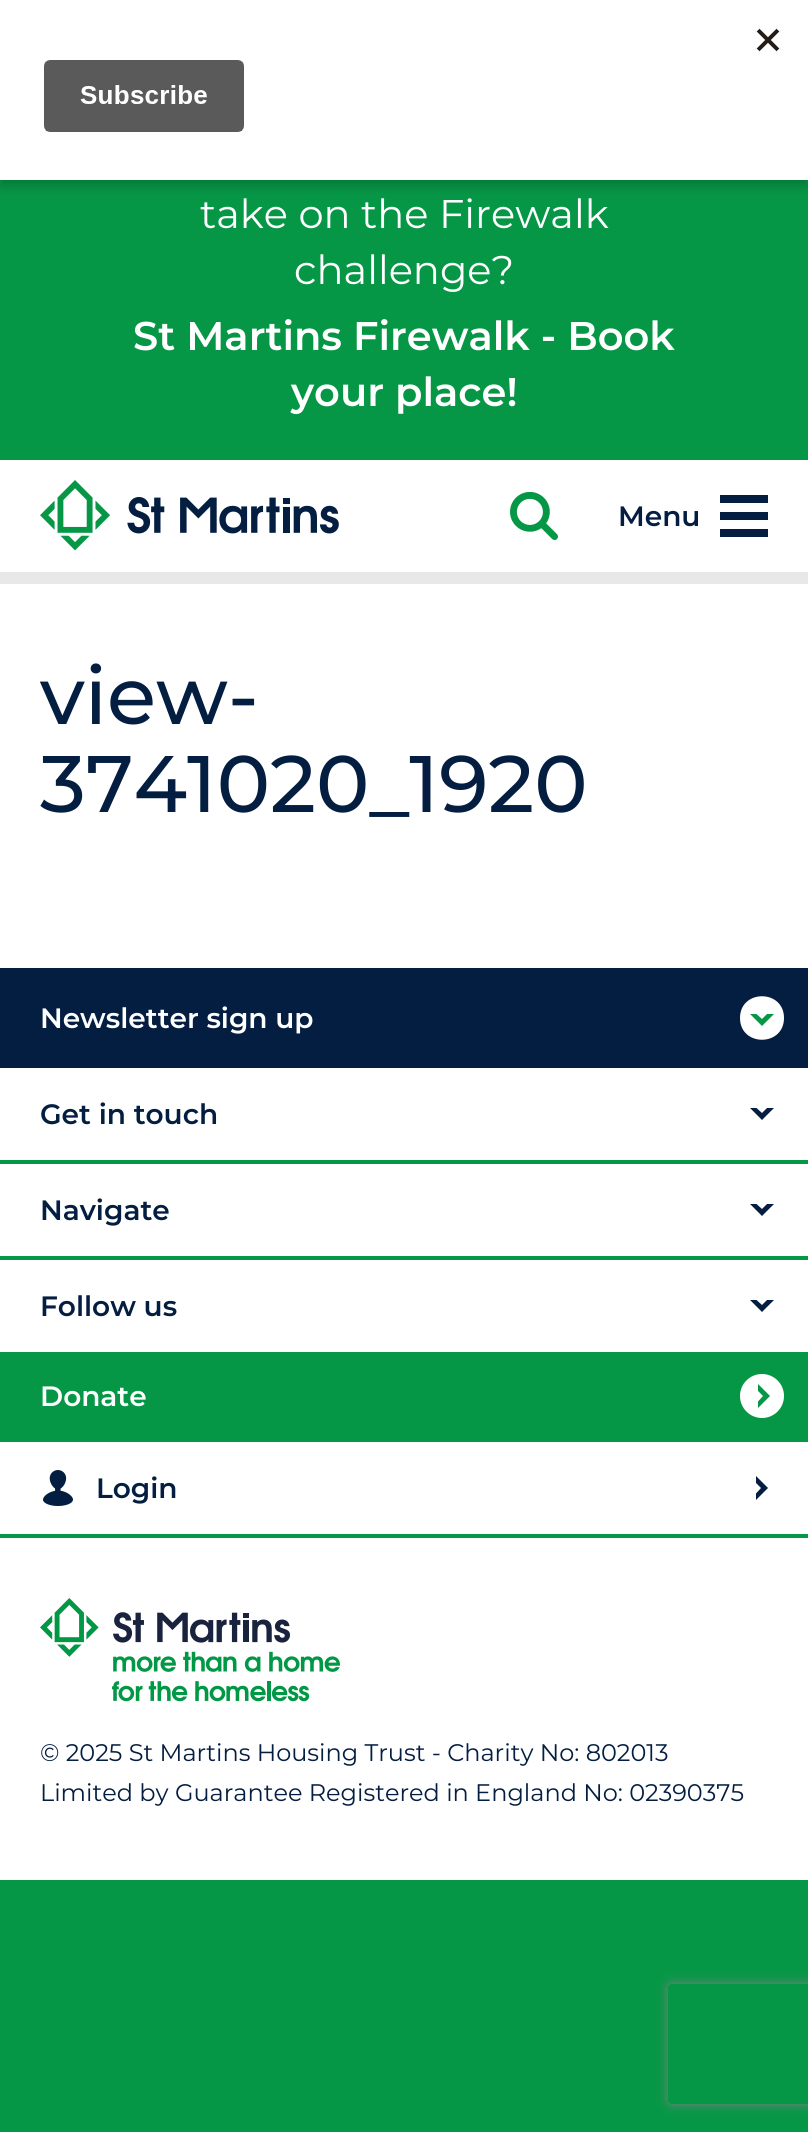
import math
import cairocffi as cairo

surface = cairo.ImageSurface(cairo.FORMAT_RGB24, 808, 2132)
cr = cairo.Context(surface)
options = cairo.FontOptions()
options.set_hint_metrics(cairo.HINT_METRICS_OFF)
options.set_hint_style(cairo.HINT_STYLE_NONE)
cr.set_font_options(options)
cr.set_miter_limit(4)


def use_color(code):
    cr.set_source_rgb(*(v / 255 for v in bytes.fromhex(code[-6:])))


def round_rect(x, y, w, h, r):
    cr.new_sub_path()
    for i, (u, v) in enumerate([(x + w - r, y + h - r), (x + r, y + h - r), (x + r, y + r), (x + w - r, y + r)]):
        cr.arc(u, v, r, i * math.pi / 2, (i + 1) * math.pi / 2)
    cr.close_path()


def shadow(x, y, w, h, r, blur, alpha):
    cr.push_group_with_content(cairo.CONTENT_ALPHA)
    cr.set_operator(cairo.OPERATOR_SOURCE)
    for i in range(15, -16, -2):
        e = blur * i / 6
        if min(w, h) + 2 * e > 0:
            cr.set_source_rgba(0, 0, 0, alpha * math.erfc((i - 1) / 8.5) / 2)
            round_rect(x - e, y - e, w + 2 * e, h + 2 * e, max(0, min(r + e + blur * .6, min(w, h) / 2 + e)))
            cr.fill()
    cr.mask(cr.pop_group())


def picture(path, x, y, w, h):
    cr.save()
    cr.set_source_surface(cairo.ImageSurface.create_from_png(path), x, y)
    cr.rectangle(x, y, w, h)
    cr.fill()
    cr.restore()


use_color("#069746")
cr.paint()
use_color("#000000")
shadow(0, 6, 808, 180, 0, 6, 0.2)
use_color("#ffffff")
cr.rectangle(0, 0, 808, 180)
cr.fill()
picture("img1.png", 44, 28, 736, 104)
cr.rectangle(0, 460, 808, 112)
cr.fill()
cr.select_font_face("Montserrat")
cr.set_font_size(40)
cr.move_to(200, 228)
cr.show_text("take on the Firewalk")
cr.move_to(294, 284)
cr.show_text("challenge?")
cr.select_font_face("Montserrat SemiBold")
cr.move_to(133, 350)
cr.show_text("St Martins Firewalk - Book")
cr.move_to(291, 406)
cr.show_text("your place!")
picture("img2.png", 40, 480, 299, 71)
picture("img3.png", 510, 492, 48, 48)
cr.set_font_size(28)
use_color("#041e41")
cr.move_to(618, 526)
cr.show_text("Menu")
cr.rectangle(720, 495, 48, 8)
cr.fill()
cr.rectangle(720, 529, 48, 8)
cr.fill()
cr.rectangle(720, 512, 48, 8)
cr.fill()
use_color("#e8e8e8")
cr.rectangle(0, 572, 808, 12)
cr.fill()
use_color("#ffffff")
cr.rectangle(0, 584, 808, 384)
cr.fill()
cr.select_font_face("Montserrat Medium")
cr.set_font_size(80)
use_color("#041e41")
cr.move_to(40, 724)
cr.show_text("view-")
cr.move_to(40, 812)
cr.show_text("3741020_1920")
cr.rectangle(0, 968, 808, 100)
cr.fill()
cr.select_font_face("Montserrat SemiBold")
cr.set_font_size(28)
use_color("#ffffff")
cr.move_to(40, 1028)
cr.show_text("Newsletter sign up")
cr.new_path()
cr.move_to(784, 1018)
cr.curve_to(784, 1047, 740, 1047, 740, 1018)
cr.curve_to(740, 989, 784, 989, 784, 1018)
cr.close_path()
cr.fill()
use_color("#069746")
cr.new_path()
cr.move_to(767, 1014)
cr.line_to(762, 1019)
cr.line_to(756.5, 1014)
cr.line_to(750, 1014)
cr.line_to(762, 1026)
cr.line_to(774, 1014)
cr.close_path()
cr.fill()
use_color("#ffffff")
cr.rectangle(0, 1068, 808, 812)
cr.fill()
use_color("#069746")
cr.rectangle(0, 1160, 808, 4)
cr.fill()
use_color("#041e41")
cr.move_to(40, 1124)
cr.show_text("Get in touch")
cr.new_path()
cr.move_to(767, 1108)
cr.line_to(762, 1113)
cr.line_to(756.5, 1108)
cr.line_to(750, 1108)
cr.line_to(762, 1120)
cr.line_to(774, 1108)
cr.close_path()
cr.fill()
use_color("#069746")
cr.rectangle(0, 1256, 808, 4)
cr.fill()
use_color("#041e41")
cr.move_to(40, 1220)
cr.show_text("Navigate")
cr.new_path()
cr.move_to(767, 1204)
cr.line_to(762, 1209)
cr.line_to(756.5, 1204)
cr.line_to(750, 1204)
cr.line_to(762, 1216)
cr.line_to(774, 1204)
cr.close_path()
cr.fill()
cr.move_to(40, 1316)
cr.show_text("Follow us")
cr.new_path()
cr.move_to(767, 1300)
cr.line_to(762, 1305)
cr.line_to(756.5, 1300)
cr.line_to(750, 1300)
cr.line_to(762, 1312)
cr.line_to(774, 1300)
cr.close_path()
cr.fill()
use_color("#069746")
cr.rectangle(0, 1352, 808, 90)
cr.fill()
use_color("#ffffff")
cr.move_to(40, 1406)
cr.show_text("Donate")
cr.new_path()
cr.arc(762, 1396, 22, 0, 2 * math.pi)
cr.fill()
use_color("#069746")
cr.new_path()
cr.move_to(758, 1391)
cr.line_to(763, 1396)
cr.line_to(758, 1401.5)
cr.line_to(758, 1408)
cr.line_to(770, 1396)
cr.line_to(758, 1384)
cr.close_path()
cr.fill()
cr.rectangle(0, 1534, 808, 4)
cr.fill()
picture("img4.png", 43, 1470, 30, 36)
use_color("#041e41")
cr.move_to(96, 1498)
cr.show_text("Login")
cr.new_path()
cr.move_to(756, 1483)
cr.line_to(761, 1488)
cr.line_to(756, 1493.5)
cr.line_to(756, 1500)
cr.line_to(768, 1488)
cr.line_to(756, 1476)
cr.close_path()
cr.fill()
picture("img5.png", 40, 1598, 300, 104)
cr.select_font_face("Montserrat")
cr.set_font_size(24)
cr.move_to(40, 1761)
cr.show_text("© 2025 St Martins Housing Trust - Charity No: 802013")
cr.move_to(40, 1801)
cr.show_text("Limited by Guarantee Registered in England No: 02390375")
cr.save()
cr.set_fill_rule(cairo.FILL_RULE_EVEN_ODD)
cr.new_path()
cr.move_to(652, 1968)
cr.line_to(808, 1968)
cr.line_to(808, 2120)
cr.line_to(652, 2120)
cr.close_path()
cr.move_to(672, 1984)
cr.line_to(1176, 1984)
cr.curve_to(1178, 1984, 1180, 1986, 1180, 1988)
cr.line_to(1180, 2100)
cr.curve_to(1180, 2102, 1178, 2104, 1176, 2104)
cr.line_to(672, 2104)
cr.curve_to(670, 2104, 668, 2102, 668, 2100)
cr.line_to(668, 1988)
cr.curve_to(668, 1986, 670, 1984, 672, 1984)
cr.close_path()
cr.clip()
use_color("#808080")
shadow(668, 1984, 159, 120, 4, 5, 1)
cr.restore()
surface.write_to_png("result.png")
